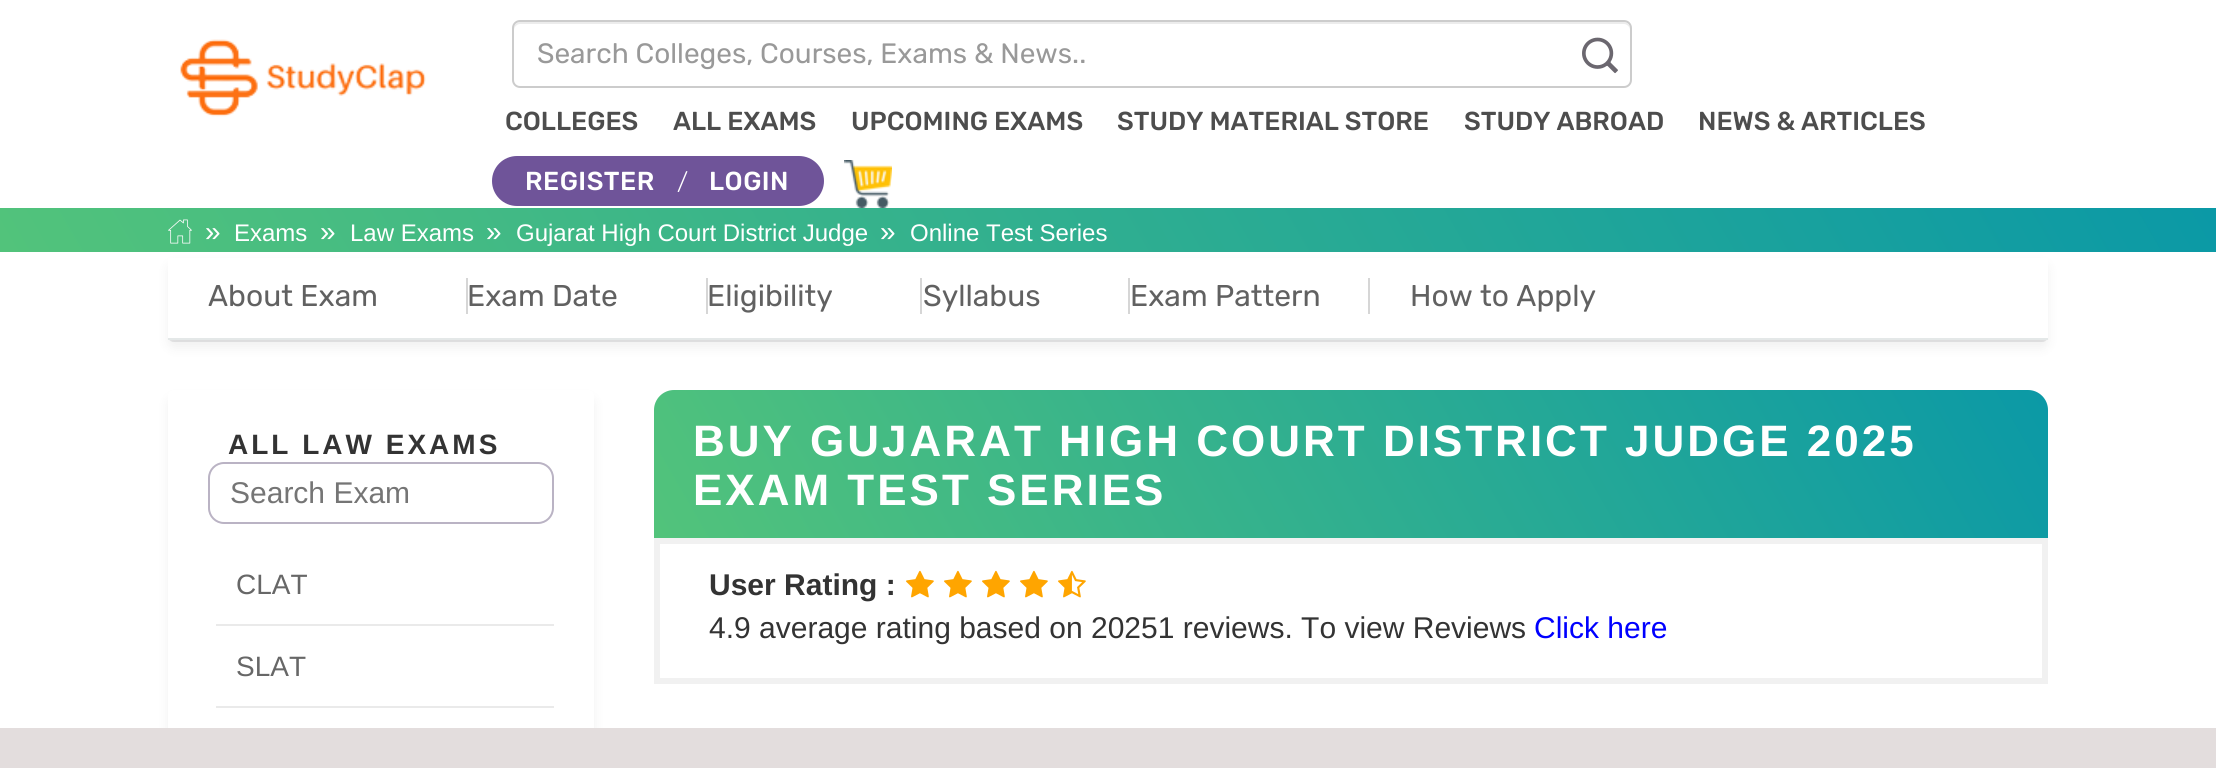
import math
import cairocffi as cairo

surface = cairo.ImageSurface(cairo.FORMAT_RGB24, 2216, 768)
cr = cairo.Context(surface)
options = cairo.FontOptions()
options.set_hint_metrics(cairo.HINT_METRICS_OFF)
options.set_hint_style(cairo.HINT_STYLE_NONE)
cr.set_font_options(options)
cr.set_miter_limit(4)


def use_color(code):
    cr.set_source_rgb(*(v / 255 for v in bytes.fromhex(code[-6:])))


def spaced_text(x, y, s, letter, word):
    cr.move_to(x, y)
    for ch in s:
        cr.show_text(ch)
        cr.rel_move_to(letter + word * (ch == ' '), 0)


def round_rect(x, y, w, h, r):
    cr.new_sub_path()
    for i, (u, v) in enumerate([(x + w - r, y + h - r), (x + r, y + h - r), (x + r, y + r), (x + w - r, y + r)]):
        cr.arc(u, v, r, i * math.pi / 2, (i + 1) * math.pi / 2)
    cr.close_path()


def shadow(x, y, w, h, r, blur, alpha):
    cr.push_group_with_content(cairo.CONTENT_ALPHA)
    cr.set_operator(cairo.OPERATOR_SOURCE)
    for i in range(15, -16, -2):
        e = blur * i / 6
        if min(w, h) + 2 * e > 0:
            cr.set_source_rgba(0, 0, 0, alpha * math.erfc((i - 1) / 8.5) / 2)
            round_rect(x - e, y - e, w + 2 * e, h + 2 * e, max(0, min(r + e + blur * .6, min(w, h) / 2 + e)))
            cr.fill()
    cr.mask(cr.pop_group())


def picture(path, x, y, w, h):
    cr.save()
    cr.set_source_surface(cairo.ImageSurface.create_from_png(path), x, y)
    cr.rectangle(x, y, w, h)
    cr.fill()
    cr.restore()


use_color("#ffffff")
cr.paint()
picture("img1.png", 180, 39, 246, 78)
use_color("#ececec")
cr.new_path()
cr.move_to(520, 24)
cr.line_to(1624, 24)
cr.curve_to(1627, 24, 1630, 27, 1630, 30)
cr.line_to(1630, 28)
cr.curve_to(1630, 25, 1627, 22, 1624, 22)
cr.line_to(520, 22)
cr.curve_to(517, 22, 514, 25, 514, 28)
cr.line_to(514, 30)
cr.curve_to(514, 27, 517, 24, 520, 24)
cr.close_path()
cr.fill()
round_rect(513, 21, 1118, 66, 7)
use_color("#cccccc")
cr.stroke()
cr.select_font_face("Rubik")
cr.set_font_size(28)
use_color("#999999")
cr.move_to(537, 63)
cr.show_text("Search Colleges, Courses, Exams & News..")
picture("img2.png", 1582, 37, 36, 37)
cr.select_font_face("Rubik Medium")
cr.set_font_size(26)
use_color("#4d4d4d")
cr.move_to(505, 130)
cr.show_text("COLLEGES")
cr.move_to(673, 130)
cr.show_text("ALL EXAMS")
cr.move_to(851, 130)
cr.show_text("UPCOMING EXAMS")
cr.move_to(1117, 130)
cr.show_text("STUDY MATERIAL STORE")
cr.move_to(1464, 130)
cr.show_text("STUDY ABROAD")
cr.move_to(1698, 130)
cr.show_text("NEWS & ARTICLES")
use_color("#6f5499")
round_rect(492, 156, 332, 50, 25)
cr.fill()
use_color("#ffffff")
spaced_text(525, 190, "REGISTER", 0.5, 0)
cr.select_font_face("Rubik Light")
cr.set_font_size(24)
spaced_text(677, 190, "/", 0.5, 0)
cr.select_font_face("Rubik Medium")
cr.set_font_size(26)
spaced_text(709, 190, "LOGIN", 0.5, 0)
picture("img3.png", 844, 160, 48, 48)
gradient = cairo.LinearGradient(1949, -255, 267, 715)
gradient.add_color_stop_rgba(0, 0.043, 0.6, 0.651, 1)
gradient.add_color_stop_rgba(1, 0.322, 0.765, 0.482, 1)
cr.set_source(gradient)
cr.rectangle(0, 208, 2216, 44)
cr.fill()
picture("img4.png", 168, 219, 24, 25)
cr.select_font_face("Liberation Sans")
cr.set_font_size(28)
use_color("#ffffff")
cr.move_to(205, 241)
cr.show_text("»")
cr.set_font_size(24)
cr.move_to(234, 241)
cr.show_text("Exams")
cr.set_font_size(28)
cr.move_to(320, 241)
cr.show_text("»")
cr.set_font_size(24)
cr.move_to(350, 241)
cr.show_text("Law Exams")
cr.set_font_size(28)
cr.move_to(486, 241)
cr.show_text("»")
cr.set_font_size(24)
cr.move_to(516, 241)
cr.show_text("Gujarat High Court District Judge")
cr.set_font_size(28)
cr.move_to(880, 241)
cr.show_text("»")
cr.set_font_size(24)
cr.move_to(910, 241)
cr.show_text("Online Test Series")
use_color("#000000")
shadow(168, 264, 1880, 84, 6, 6, 0.06)
cr.set_source_rgba(0.141, 0.149, 0.184, 0.1)
cr.new_path()
cr.move_to(168, 334)
cr.curve_to(168, 338, 169, 342, 174, 342)
cr.line_to(2042, 342)
cr.curve_to(2047, 342, 2048, 338, 2048, 334)
cr.curve_to(2048, 337, 2045, 340, 2042, 340)
cr.line_to(174, 340)
cr.curve_to(171, 340, 168, 337, 168, 334)
cr.close_path()
cr.fill()
use_color("#ffffff")
cr.rectangle(168, 258, 1880, 80)
cr.fill()
use_color("#e4e8e8")
cr.rectangle(168, 338, 1880, 2)
cr.fill()
cr.select_font_face("Rubik")
cr.set_font_size(30)
use_color("#616161")
cr.move_to(208, 306)
cr.show_text("About Exam")
cr.move_to(467, 306)
cr.show_text("Exam Date")
use_color("#d6d6d6")
cr.rectangle(466, 278, 2, 36)
cr.fill()
use_color("#616161")
cr.move_to(707, 306)
cr.show_text("Eligibility")
use_color("#d6d6d6")
cr.rectangle(706, 278, 2, 36)
cr.fill()
use_color("#616161")
cr.move_to(923, 306)
cr.show_text("Syllabus")
use_color("#d6d6d6")
cr.rectangle(920, 278, 2, 36)
cr.fill()
use_color("#616161")
cr.move_to(1130, 306)
cr.show_text("Exam Pattern")
use_color("#d6d6d6")
cr.rectangle(1128, 278, 2, 36)
cr.fill()
use_color("#616161")
cr.move_to(1410, 306)
cr.show_text("How to Apply")
use_color("#d6d6d6")
cr.rectangle(1368, 278, 2, 36)
cr.fill()
use_color("#000000")
shadow(168, 398, 426, 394, 6, 6, 0.06)
use_color("#ffffff")
round_rect(168, 390, 426, 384, 6)
cr.fill()
cr.select_font_face("Liberation Sans", cairo.FONT_SLANT_NORMAL, cairo.FONT_WEIGHT_BOLD)
cr.set_font_size(28)
use_color("#333333")
spaced_text(228, 454, "ALL LAW EXAMS", 3, 0)
round_rect(209, 463, 344, 60, 15)
use_color("#bab3c4")
cr.stroke()
cr.select_font_face("Liberation Sans")
cr.set_font_size(30)
use_color("#757575")
cr.move_to(230, 503)
cr.show_text("Search Exam")
use_color("#eaeaea")
cr.rectangle(216, 624, 338, 2)
cr.fill()
cr.set_font_size(28)
use_color("#676767")
cr.move_to(236, 594)
cr.show_text("CLAT")
use_color("#eaeaea")
cr.rectangle(216, 706, 338, 2)
cr.fill()
use_color("#676767")
cr.move_to(236, 676)
cr.show_text("SLAT")
gradient = cairo.LinearGradient(1906, 144, 796, 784)
gradient.add_color_stop_rgba(0, 0.043, 0.6, 0.651, 1)
gradient.add_color_stop_rgba(1, 0.322, 0.765, 0.482, 1)
cr.set_source(gradient)
cr.new_path()
cr.move_to(674, 390)
cr.line_to(2028, 390)
cr.curve_to(2039, 390, 2048, 399, 2048, 410)
cr.line_to(2048, 538)
cr.line_to(654, 538)
cr.line_to(654, 410)
cr.curve_to(654, 399, 663, 390, 674, 390)
cr.close_path()
cr.fill()
cr.select_font_face("Liberation Sans", cairo.FONT_SLANT_NORMAL, cairo.FONT_WEIGHT_BOLD)
cr.set_font_size(44)
use_color("#ffffff")
spaced_text(693, 456, "BUY GUJARAT HIGH COURT DISTRICT JUDGE 2025", 3, 0)
spaced_text(693, 505, "EXAM TEST SERIES", 3, 0)
cr.rectangle(657, 541, 1388, 140)
use_color("#f1f1f1")
cr.set_line_width(6)
cr.stroke()
cr.set_font_size(30)
use_color("#333333")
cr.move_to(709, 595)
cr.show_text("User Rating :")
picture("img5.png", 906, 570, 28, 28)
picture("img5.png", 944, 570, 28, 28)
picture("img5.png", 982, 570, 28, 28)
picture("img5.png", 1020, 570, 28, 28)
picture("img6.png", 1058, 570, 28, 28)
cr.select_font_face("Liberation Sans")
cr.move_to(709, 638)
cr.show_text("4.9 average rating based on 20251 reviews. To view Reviews")
use_color("#0000ff")
cr.move_to(1534, 638)
cr.show_text("Click here")
use_color("#e3dddd")
cr.rectangle(0, 728, 2216, 40)
cr.fill()
surface.write_to_png("result.png")
